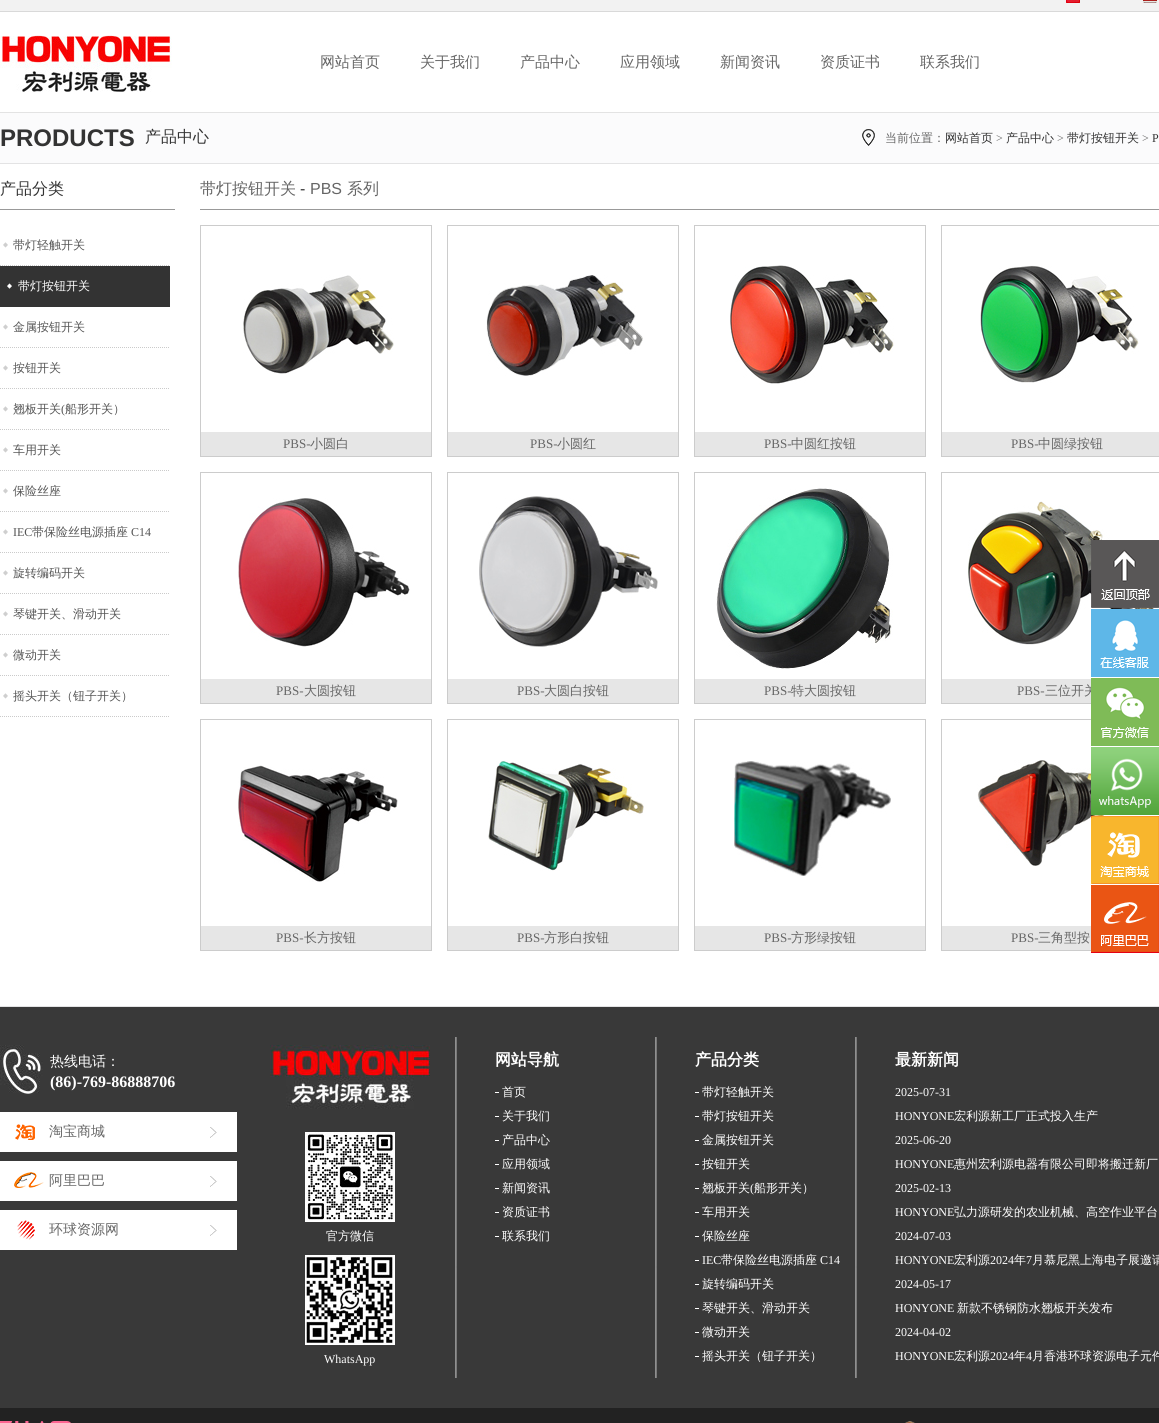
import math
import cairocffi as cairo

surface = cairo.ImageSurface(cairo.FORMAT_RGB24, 1159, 1423)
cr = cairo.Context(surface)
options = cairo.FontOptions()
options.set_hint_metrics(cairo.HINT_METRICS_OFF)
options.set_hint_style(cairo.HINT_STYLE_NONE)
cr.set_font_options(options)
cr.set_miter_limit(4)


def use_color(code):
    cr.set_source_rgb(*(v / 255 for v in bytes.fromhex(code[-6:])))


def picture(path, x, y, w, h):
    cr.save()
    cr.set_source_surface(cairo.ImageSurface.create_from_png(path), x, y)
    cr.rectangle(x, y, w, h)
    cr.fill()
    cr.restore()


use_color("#ffffff")
cr.paint()
use_color("#f2f2f2")
cr.rectangle(0, 0, 1159, 11)
cr.fill()
use_color("#d9d9d9")
cr.rectangle(0, 11, 1159, 1)
cr.fill()
picture("img1.png", 1066, 0, 14, 3)
picture("img2.png", 1143, 0, 14, 3)
use_color("#e3e3e3")
cr.rectangle(0, 112, 1159, 1)
cr.fill()
picture("img3.png", 0, 35, 172, 57)
cr.select_font_face("WenQuanYi Zen Hei Medium")
cr.set_font_size(15)
use_color("#666666")
cr.move_to(320, 67)
cr.show_text("网站首页")
cr.move_to(420, 67)
cr.show_text("关于我们")
cr.move_to(520, 67)
cr.show_text("产品中心")
cr.move_to(620, 67)
cr.show_text("应用领域")
cr.move_to(720, 67)
cr.show_text("新闻资讯")
cr.move_to(820, 67)
cr.show_text("资质证书")
cr.move_to(920, 67)
cr.show_text("联系我们")
use_color("#fbfbfc")
cr.rectangle(0, 113, 1159, 50)
cr.fill()
use_color("#e3e3e4")
cr.rectangle(0, 163, 1159, 1)
cr.fill()
cr.select_font_face("Liberation Sans", cairo.FONT_SLANT_NORMAL, cairo.FONT_WEIGHT_BOLD)
cr.set_font_size(24)
use_color("#333333")
cr.move_to(0, 146)
cr.show_text("PRODUCTS")
cr.select_font_face("WenQuanYi Zen Hei Medium")
cr.set_font_size(16)
cr.move_to(145, 142)
cr.show_text("产品中心")
picture("img4.png", 862, 129, 13, 17)
cr.set_font_size(12)
use_color("#666666")
cr.move_to(885, 142)
cr.show_text("当前位置：")
use_color("#333333")
cr.move_to(945, 142)
cr.show_text("网站首页")
cr.select_font_face("Liberation Serif")
use_color("#666666")
cr.move_to(996, 142)
cr.show_text(">")
cr.select_font_face("WenQuanYi Zen Hei Medium")
use_color("#333333")
cr.move_to(1006, 142)
cr.show_text("产品中心")
cr.select_font_face("Liberation Serif")
use_color("#666666")
cr.move_to(1057, 142)
cr.show_text(">")
cr.select_font_face("WenQuanYi Zen Hei Medium")
use_color("#333333")
cr.move_to(1067, 142)
cr.show_text("带灯按钮开关")
cr.select_font_face("Liberation Serif")
use_color("#666666")
cr.move_to(1142, 142)
cr.show_text(">")
use_color("#333333")
cr.move_to(1152, 142)
cr.show_text("P")
use_color("#999999")
cr.rectangle(0, 209, 175, 1)
cr.fill()
cr.select_font_face("WenQuanYi Zen Hei Medium")
cr.set_font_size(16)
use_color("#333333")
cr.move_to(0, 194)
cr.show_text("产品分类")
picture("img5.png", 3, 242, 5, 6)
cr.new_path()
cr.move_to(0, 265.5)
cr.line_to(170, 265.5)
use_color("#cbcbcb")
cr.set_line_width(1)
cr.set_dash([1, 1])
cr.stroke()
cr.set_font_size(12)
use_color("#555555")
cr.move_to(13, 249)
cr.show_text("带灯轻触开关")
use_color("#333333")
cr.rectangle(0, 266, 170, 41)
cr.fill()
picture("img6.png", 7, 283, 5, 6)
use_color("#ffffff")
cr.move_to(18, 290)
cr.show_text("带灯按钮开关")
picture("img5.png", 3, 324, 5, 6)
cr.new_path()
cr.move_to(0, 347.5)
cr.line_to(170, 347.5)
use_color("#cbcbcb")
cr.stroke()
use_color("#555555")
cr.move_to(13, 331)
cr.show_text("金属按钮开关")
picture("img5.png", 3, 365, 5, 6)
cr.new_path()
cr.move_to(0, 388.5)
cr.line_to(170, 388.5)
use_color("#cbcbcb")
cr.stroke()
use_color("#555555")
cr.move_to(13, 372)
cr.show_text("按钮开关")
picture("img5.png", 3, 406, 5, 6)
cr.new_path()
cr.move_to(0, 429.5)
cr.line_to(170, 429.5)
use_color("#cbcbcb")
cr.stroke()
use_color("#555555")
cr.move_to(13, 413)
cr.show_text("翘板开关")
cr.select_font_face("Liberation Serif")
cr.move_to(61, 413)
cr.show_text("(")
cr.select_font_face("WenQuanYi Zen Hei Medium")
cr.move_to(65, 413)
cr.show_text("船形开关）")
picture("img5.png", 3, 447, 5, 6)
cr.new_path()
cr.move_to(0, 470.5)
cr.line_to(170, 470.5)
use_color("#cbcbcb")
cr.stroke()
use_color("#555555")
cr.move_to(13, 454)
cr.show_text("车用开关")
picture("img5.png", 3, 488, 5, 6)
cr.new_path()
cr.move_to(0, 511.5)
cr.line_to(170, 511.5)
use_color("#cbcbcb")
cr.stroke()
use_color("#555555")
cr.move_to(13, 495)
cr.show_text("保险丝座")
picture("img5.png", 3, 529, 5, 6)
cr.new_path()
cr.move_to(0, 552.5)
cr.line_to(170, 552.5)
use_color("#cbcbcb")
cr.stroke()
cr.select_font_face("Liberation Serif")
use_color("#555555")
cr.move_to(13, 536)
cr.show_text("IEC")
cr.select_font_face("WenQuanYi Zen Hei Medium")
cr.move_to(32, 536)
cr.show_text("带保险丝电源插座")
cr.select_font_face("Liberation Serif")
cr.move_to(131, 536)
cr.show_text("C14")
picture("img5.png", 3, 570, 5, 6)
cr.new_path()
cr.move_to(0, 593.5)
cr.line_to(170, 593.5)
use_color("#cbcbcb")
cr.stroke()
cr.select_font_face("WenQuanYi Zen Hei Medium")
use_color("#555555")
cr.move_to(13, 577)
cr.show_text("旋转编码开关")
picture("img5.png", 3, 611, 5, 6)
cr.new_path()
cr.move_to(0, 634.5)
cr.line_to(170, 634.5)
use_color("#cbcbcb")
cr.stroke()
use_color("#555555")
cr.move_to(13, 618)
cr.show_text("琴键开关、滑动开关")
picture("img5.png", 3, 652, 5, 6)
cr.new_path()
cr.move_to(0, 675.5)
cr.line_to(170, 675.5)
use_color("#cbcbcb")
cr.stroke()
use_color("#555555")
cr.move_to(13, 659)
cr.show_text("微动开关")
picture("img5.png", 3, 693, 5, 6)
cr.new_path()
cr.move_to(0, 716.5)
cr.line_to(170, 716.5)
use_color("#cbcbcb")
cr.stroke()
use_color("#555555")
cr.move_to(13, 700)
cr.show_text("摇头开关（钮子开关）")
use_color("#999999")
cr.rectangle(200, 209, 959, 1)
cr.fill()
cr.set_font_size(16)
use_color("#666666")
cr.move_to(200, 194)
cr.show_text("带灯按钮开关")
cr.select_font_face("Liberation Sans")
use_color("#333333")
cr.move_to(300, 194)
cr.show_text("-")
use_color("#666666")
cr.move_to(310, 194)
cr.show_text("PBS")
cr.select_font_face("WenQuanYi Zen Hei Medium")
cr.move_to(347, 194)
cr.show_text("系列")
cr.rectangle(200.5, 225.5, 231, 231)
use_color("#cccccc")
cr.set_dash([])
cr.stroke()
picture("img7.png", 243, 275, 151, 99)
use_color("#e6e6e6")
cr.rectangle(201, 432, 230, 24)
cr.fill()
cr.select_font_face("Liberation Serif")
cr.set_font_size(13)
use_color("#666666")
cr.move_to(283, 448)
cr.show_text("PBS-")
cr.select_font_face("WenQuanYi Zen Hei Medium")
cr.move_to(310, 448)
cr.show_text("小圆白")
cr.rectangle(447.5, 225.5, 231, 231)
use_color("#cccccc")
cr.stroke()
picture("img8.png", 486, 275, 157, 101)
use_color("#e6e6e6")
cr.rectangle(448, 432, 230, 24)
cr.fill()
cr.select_font_face("Liberation Serif")
use_color("#666666")
cr.move_to(530, 448)
cr.show_text("PBS-")
cr.select_font_face("WenQuanYi Zen Hei Medium")
cr.move_to(557, 448)
cr.show_text("小圆红")
cr.rectangle(694.5, 225.5, 231, 231)
use_color("#cccccc")
cr.stroke()
picture("img9.png", 730, 265, 164, 119)
use_color("#e6e6e6")
cr.rectangle(695, 432, 230, 24)
cr.fill()
cr.select_font_face("Liberation Serif")
use_color("#666666")
cr.move_to(764, 448)
cr.show_text("PBS-")
cr.select_font_face("WenQuanYi Zen Hei Medium")
cr.move_to(791, 448)
cr.show_text("中圆红按钮")
cr.rectangle(941.5, 225.5, 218, 231)
use_color("#cccccc")
cr.stroke()
picture("img10.png", 980, 265, 159, 118)
use_color("#e6e6e6")
cr.rectangle(942, 432, 217, 24)
cr.fill()
cr.select_font_face("Liberation Serif")
use_color("#666666")
cr.move_to(1011, 448)
cr.show_text("PBS-")
cr.select_font_face("WenQuanYi Zen Hei Medium")
cr.move_to(1038, 448)
cr.show_text("中圆绿按钮")
cr.rectangle(200.5, 472.5, 231, 231)
use_color("#cccccc")
cr.stroke()
picture("img11.png", 238, 498, 172, 149)
use_color("#e6e6e6")
cr.rectangle(201, 679, 230, 24)
cr.fill()
cr.select_font_face("Liberation Serif")
use_color("#666666")
cr.move_to(276, 695)
cr.show_text("PBS-")
cr.select_font_face("WenQuanYi Zen Hei Medium")
cr.move_to(304, 695)
cr.show_text("大圆按钮")
cr.rectangle(447.5, 472.5, 231, 231)
use_color("#cccccc")
cr.stroke()
picture("img12.png", 479, 496, 179, 151)
use_color("#e6e6e6")
cr.rectangle(448, 679, 230, 24)
cr.fill()
cr.select_font_face("Liberation Serif")
use_color("#666666")
cr.move_to(517, 695)
cr.show_text("PBS-")
cr.select_font_face("WenQuanYi Zen Hei Medium")
cr.move_to(544, 695)
cr.show_text("大圆白按钮")
cr.rectangle(694.5, 472.5, 231, 231)
use_color("#cccccc")
cr.stroke()
picture("img13.png", 716, 488, 177, 181)
use_color("#e6e6e6")
cr.rectangle(695, 679, 230, 24)
cr.fill()
cr.select_font_face("Liberation Serif")
use_color("#666666")
cr.move_to(764, 695)
cr.show_text("PBS-")
cr.select_font_face("WenQuanYi Zen Hei Medium")
cr.move_to(791, 695)
cr.show_text("特大圆按钮")
cr.rectangle(941.5, 472.5, 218, 231)
use_color("#cccccc")
cr.stroke()
picture("img14.png", 968, 501, 188, 144)
use_color("#e6e6e6")
cr.rectangle(942, 679, 149, 24)
cr.fill()
cr.select_font_face("Liberation Serif")
use_color("#666666")
cr.move_to(1017, 695)
cr.show_text("PBS-")
cr.select_font_face("WenQuanYi Zen Hei Medium")
cr.move_to(1045, 695)
cr.show_text("三位开关")
cr.rectangle(200.5, 719.5, 231, 231)
use_color("#cccccc")
cr.stroke()
picture("img15.png", 238, 765, 160, 117)
use_color("#e6e6e6")
cr.rectangle(201, 926, 230, 24)
cr.fill()
cr.select_font_face("Liberation Serif")
use_color("#666666")
cr.move_to(276, 942)
cr.show_text("PBS-")
cr.select_font_face("WenQuanYi Zen Hei Medium")
cr.move_to(304, 942)
cr.show_text("长方按钮")
cr.rectangle(447.5, 719.5, 231, 231)
use_color("#cccccc")
cr.stroke()
picture("img16.png", 488, 761, 156, 110)
use_color("#e6e6e6")
cr.rectangle(448, 926, 230, 24)
cr.fill()
cr.select_font_face("Liberation Serif")
use_color("#666666")
cr.move_to(517, 942)
cr.show_text("PBS-")
cr.select_font_face("WenQuanYi Zen Hei Medium")
cr.move_to(544, 942)
cr.show_text("方形白按钮")
cr.rectangle(694.5, 719.5, 231, 231)
use_color("#cccccc")
cr.stroke()
picture("img17.png", 734, 761, 157, 115)
use_color("#e6e6e6")
cr.rectangle(695, 926, 230, 24)
cr.fill()
cr.select_font_face("Liberation Serif")
use_color("#666666")
cr.move_to(764, 942)
cr.show_text("PBS-")
cr.select_font_face("WenQuanYi Zen Hei Medium")
cr.move_to(791, 942)
cr.show_text("方形绿按钮")
cr.rectangle(941.5, 719.5, 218, 231)
use_color("#cccccc")
cr.stroke()
picture("img18.png", 977, 760, 166, 106)
use_color("#e6e6e6")
cr.rectangle(942, 926, 149, 24)
cr.fill()
cr.select_font_face("Liberation Serif")
use_color("#666666")
cr.move_to(1011, 942)
cr.show_text("PBS-")
cr.select_font_face("WenQuanYi Zen Hei Medium")
cr.move_to(1038, 942)
cr.show_text("三角型按")
picture("img19.png", 1091, 540, 68, 68)
use_color("#5eb7e8")
cr.rectangle(1091, 609, 68, 68)
cr.fill()
picture("img20.png", 1100, 619, 49, 49)
use_color("#7fbb57")
cr.rectangle(1091, 678, 68, 68)
cr.fill()
picture("img21.png", 1091, 678, 68, 68)
picture("img22.png", 1091, 747, 68, 68)
use_color("#e60012")
cr.rectangle(1091, 816, 68, 68)
cr.fill()
picture("img23.png", 1091, 816, 68, 68)
cr.rectangle(1091, 885, 68, 68)
cr.fill()
picture("img24.png", 1091, 885, 68, 67)
use_color("#393939")
cr.rectangle(0, 1007, 1159, 401)
cr.fill()
use_color("#e3e3e4")
cr.rectangle(0, 1006, 1159, 1)
cr.fill()
picture("img25.png", 270, 1045, 160, 64)
picture("img26.png", 0, 1045, 43, 49)
cr.set_font_size(14)
use_color("#ffffff")
cr.move_to(50, 1066)
cr.show_text("热线电话：")
cr.select_font_face("Liberation Serif", cairo.FONT_SLANT_NORMAL, cairo.FONT_WEIGHT_BOLD)
cr.set_font_size(16)
cr.move_to(50, 1087)
cr.show_text("(86)-769-86888706")
cr.rectangle(0, 1112, 237, 40)
cr.fill()
picture("img27.png", 210, 1127, 7, 11)
picture("img28.png", 15, 1124, 20, 16)
cr.select_font_face("WenQuanYi Zen Hei Medium")
cr.set_font_size(14)
use_color("#666666")
cr.move_to(49, 1136)
cr.show_text("淘宝商城")
use_color("#ffffff")
cr.rectangle(0, 1161, 237, 40)
cr.fill()
picture("img27.png", 210, 1176, 7, 11)
picture("img29.png", 14, 1172, 30, 16)
use_color("#666666")
cr.move_to(49, 1185)
cr.show_text("阿里巴巴")
use_color("#ffffff")
cr.rectangle(0, 1210, 237, 40)
cr.fill()
picture("img27.png", 210, 1225, 7, 11)
picture("img30.png", 17, 1220, 18, 20)
use_color("#666666")
cr.move_to(49, 1234)
cr.show_text("环球资源网")
picture("img31.png", 305, 1132, 90, 90)
cr.set_font_size(12)
use_color("#ffffff")
cr.move_to(326, 1240)
cr.show_text("官方微信")
picture("img32.png", 305, 1255, 90, 90)
cr.select_font_face("Liberation Serif")
cr.move_to(324, 1363)
cr.show_text("WhatsApp")
picture("img33.png", 455, 1037, 2, 341)
cr.select_font_face("WenQuanYi Zen Hei", cairo.FONT_SLANT_NORMAL, cairo.FONT_WEIGHT_BOLD)
cr.set_font_size(16)
cr.move_to(495, 1065)
cr.show_text("网站导航")
cr.rectangle(495, 1092, 4, 1)
cr.fill()
cr.select_font_face("WenQuanYi Zen Hei Medium")
cr.set_font_size(12)
cr.move_to(502, 1096)
cr.show_text("首页")
cr.rectangle(495, 1116, 4, 1)
cr.fill()
cr.move_to(502, 1120)
cr.show_text("关于我们")
cr.rectangle(495, 1140, 4, 1)
cr.fill()
cr.move_to(502, 1144)
cr.show_text("产品中心")
cr.rectangle(495, 1164, 4, 1)
cr.fill()
cr.move_to(502, 1168)
cr.show_text("应用领域")
cr.rectangle(495, 1188, 4, 1)
cr.fill()
cr.move_to(502, 1192)
cr.show_text("新闻资讯")
cr.rectangle(495, 1212, 4, 1)
cr.fill()
cr.move_to(502, 1216)
cr.show_text("资质证书")
cr.rectangle(495, 1236, 4, 1)
cr.fill()
cr.move_to(502, 1240)
cr.show_text("联系我们")
picture("img33.png", 655, 1037, 2, 341)
cr.select_font_face("WenQuanYi Zen Hei", cairo.FONT_SLANT_NORMAL, cairo.FONT_WEIGHT_BOLD)
cr.set_font_size(16)
cr.move_to(695, 1065)
cr.show_text("产品分类")
cr.rectangle(695, 1092, 4, 1)
cr.fill()
cr.select_font_face("WenQuanYi Zen Hei Medium")
cr.set_font_size(12)
cr.move_to(702, 1096)
cr.show_text("带灯轻触开关")
cr.rectangle(695, 1116, 4, 1)
cr.fill()
cr.move_to(702, 1120)
cr.show_text("带灯按钮开关")
cr.rectangle(695, 1140, 4, 1)
cr.fill()
cr.move_to(702, 1144)
cr.show_text("金属按钮开关")
cr.rectangle(695, 1164, 4, 1)
cr.fill()
cr.move_to(702, 1168)
cr.show_text("按钮开关")
cr.rectangle(695, 1188, 4, 1)
cr.fill()
cr.move_to(702, 1192)
cr.show_text("翘板开关")
cr.select_font_face("Liberation Serif")
cr.move_to(750, 1192)
cr.show_text("(")
cr.select_font_face("WenQuanYi Zen Hei Medium")
cr.move_to(754, 1192)
cr.show_text("船形开关）")
cr.rectangle(695, 1212, 4, 1)
cr.fill()
cr.move_to(702, 1216)
cr.show_text("车用开关")
cr.rectangle(695, 1236, 4, 1)
cr.fill()
cr.move_to(702, 1240)
cr.show_text("保险丝座")
cr.rectangle(695, 1260, 4, 1)
cr.fill()
cr.select_font_face("Liberation Serif")
cr.move_to(702, 1264)
cr.show_text("IEC")
cr.select_font_face("WenQuanYi Zen Hei Medium")
cr.move_to(721, 1264)
cr.show_text("带保险丝电源插座")
cr.select_font_face("Liberation Serif")
cr.move_to(820, 1264)
cr.show_text("C14")
cr.rectangle(695, 1284, 4, 1)
cr.fill()
cr.select_font_face("WenQuanYi Zen Hei Medium")
cr.move_to(702, 1288)
cr.show_text("旋转编码开关")
cr.rectangle(695, 1308, 4, 1)
cr.fill()
cr.move_to(702, 1312)
cr.show_text("琴键开关、滑动开关")
cr.rectangle(695, 1332, 4, 1)
cr.fill()
cr.move_to(702, 1336)
cr.show_text("微动开关")
cr.rectangle(695, 1356, 4, 1)
cr.fill()
cr.move_to(702, 1360)
cr.show_text("摇头开关（钮子开关）")
picture("img33.png", 855, 1037, 2, 341)
cr.select_font_face("WenQuanYi Zen Hei", cairo.FONT_SLANT_NORMAL, cairo.FONT_WEIGHT_BOLD)
cr.set_font_size(16)
cr.move_to(895, 1065)
cr.show_text("最新新闻")
cr.select_font_face("Liberation Serif")
cr.set_font_size(12)
cr.move_to(895, 1096)
cr.show_text("2025-07-31")
cr.move_to(895, 1120)
cr.show_text("HONYONE")
cr.select_font_face("WenQuanYi Zen Hei Medium")
cr.move_to(954, 1120)
cr.show_text("宏利源新工厂正式投入生产")
cr.select_font_face("Liberation Serif")
cr.move_to(895, 1144)
cr.show_text("2025-06-20")
cr.move_to(895, 1168)
cr.show_text("HONYONE")
cr.select_font_face("WenQuanYi Zen Hei Medium")
cr.move_to(954, 1168)
cr.show_text("惠州宏利源电器有限公司即将搬迁新厂")
cr.select_font_face("Liberation Serif")
cr.move_to(895, 1192)
cr.show_text("2025-02-13")
cr.move_to(895, 1216)
cr.show_text("HONYONE")
cr.select_font_face("WenQuanYi Zen Hei Medium")
cr.move_to(954, 1216)
cr.show_text("弘力源研发的农业机械、高空作业平台")
cr.select_font_face("Liberation Serif")
cr.move_to(895, 1240)
cr.show_text("2024-07-03")
cr.move_to(895, 1264)
cr.show_text("HONYONE")
cr.select_font_face("WenQuanYi Zen Hei Medium")
cr.move_to(954, 1264)
cr.show_text("宏利源")
cr.select_font_face("Liberation Serif")
cr.move_to(990, 1264)
cr.show_text("2024")
cr.select_font_face("WenQuanYi Zen Hei Medium")
cr.move_to(1014, 1264)
cr.show_text("年")
cr.select_font_face("Liberation Serif")
cr.move_to(1026, 1264)
cr.show_text("7")
cr.select_font_face("WenQuanYi Zen Hei Medium")
cr.move_to(1032, 1264)
cr.show_text("月慕尼黑上海电子展邀请")
cr.select_font_face("Liberation Serif")
cr.move_to(895, 1288)
cr.show_text("2024-05-17")
cr.move_to(895, 1312)
cr.show_text("HONYONE")
cr.select_font_face("WenQuanYi Zen Hei Medium")
cr.move_to(957, 1312)
cr.show_text("新款不锈钢防水翘板开关发布")
cr.select_font_face("Liberation Serif")
cr.move_to(895, 1336)
cr.show_text("2024-04-02")
cr.move_to(895, 1360)
cr.show_text("HONYONE")
cr.select_font_face("WenQuanYi Zen Hei Medium")
cr.move_to(954, 1360)
cr.show_text("宏利源")
cr.select_font_face("Liberation Serif")
cr.move_to(990, 1360)
cr.show_text("2024")
cr.select_font_face("WenQuanYi Zen Hei Medium")
cr.move_to(1014, 1360)
cr.show_text("年")
cr.select_font_face("Liberation Serif")
cr.move_to(1026, 1360)
cr.show_text("4")
cr.select_font_face("WenQuanYi Zen Hei Medium")
cr.move_to(1032, 1360)
cr.show_text("月香港环球资源电子元件")
use_color("#222222")
cr.rectangle(0, 1408, 1159, 15)
cr.fill()
picture("img34.png", 0, 1421, 71, 2)
picture("img35.png", 905, 1421, 10, 2)
surface.write_to_png("result.png")
